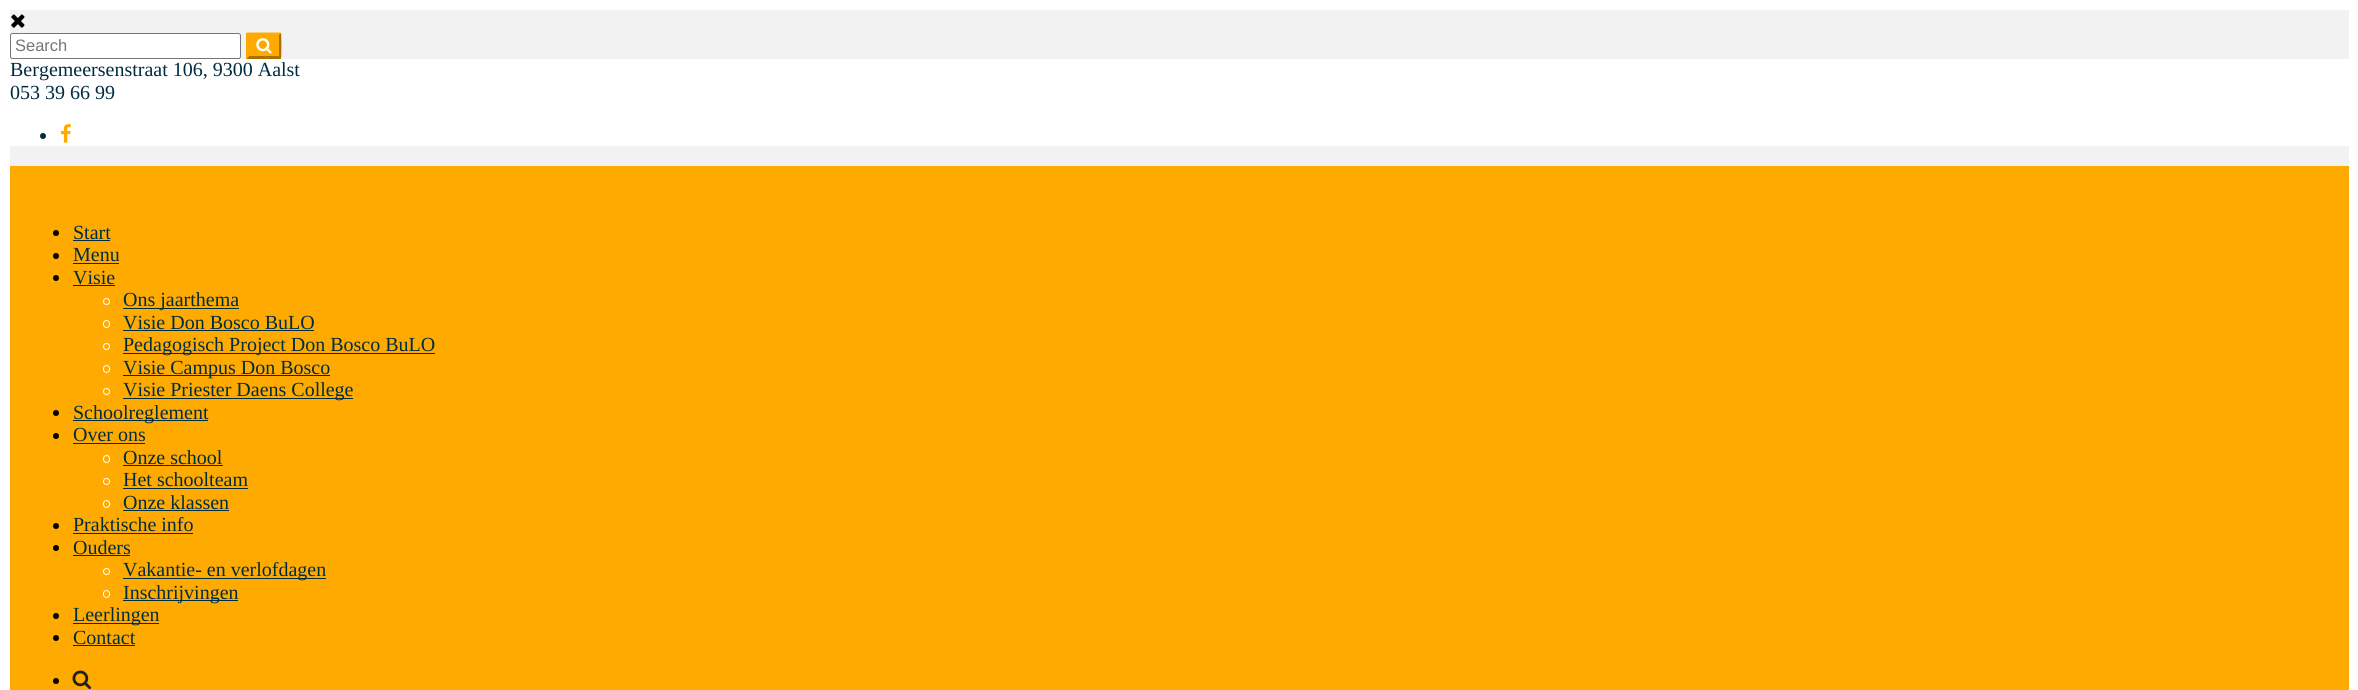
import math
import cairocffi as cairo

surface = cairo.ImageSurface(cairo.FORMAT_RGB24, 2358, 690)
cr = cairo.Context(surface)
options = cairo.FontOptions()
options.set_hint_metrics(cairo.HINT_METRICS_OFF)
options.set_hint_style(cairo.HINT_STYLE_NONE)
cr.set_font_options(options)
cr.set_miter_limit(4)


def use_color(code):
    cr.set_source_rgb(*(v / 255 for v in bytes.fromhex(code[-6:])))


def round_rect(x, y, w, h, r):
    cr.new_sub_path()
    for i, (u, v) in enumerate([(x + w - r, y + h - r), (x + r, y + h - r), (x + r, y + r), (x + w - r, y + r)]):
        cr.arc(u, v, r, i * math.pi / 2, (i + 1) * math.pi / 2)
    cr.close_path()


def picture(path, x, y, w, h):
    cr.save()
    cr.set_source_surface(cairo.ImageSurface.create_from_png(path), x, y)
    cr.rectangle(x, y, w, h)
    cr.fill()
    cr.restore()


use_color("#ffffff")
cr.paint()
use_color("#f2f2f2")
cr.rectangle(10, 10, 2339, 156)
cr.fill()
picture("img1.png", 11, 14, 14, 14)
use_color("#ffffff")
round_rect(10.5, 33.5, 230, 25, 2)
cr.fill_preserve()
use_color("#767676")
cr.set_line_width(1)
cr.stroke()
cr.select_font_face("Liberation Sans")
cr.set_font_size(16.5)
use_color("#757575")
cr.move_to(15, 51)
cr.show_text("Search")
use_color("#ffaa01")
round_rect(246, 33, 35, 26, 1)
cr.fill()
cr.new_path()
cr.move_to(247.5, 32.5)
cr.line_to(246.5, 33)
cr.line_to(249, 35)
cr.line_to(279, 35)
cr.line_to(281, 33)
cr.line_to(280, 32.5)
cr.close_path()
cr.fill()
use_color("#aa7101")
cr.new_path()
cr.move_to(281, 33)
cr.curve_to(281.5, 34, 281.5, 57.5, 281, 58.5)
cr.line_to(278.5, 56)
cr.line_to(279, 56)
cr.line_to(279, 35)
cr.close_path()
cr.fill()
cr.new_path()
cr.move_to(247, 59)
cr.line_to(246.5, 58.5)
cr.line_to(249, 56)
cr.line_to(278.5, 56)
cr.line_to(281, 58.5)
cr.line_to(280.5, 59)
cr.close_path()
cr.fill()
use_color("#ffaa01")
cr.new_path()
cr.move_to(246, 33)
cr.line_to(246.5, 33)
cr.line_to(249, 35)
cr.line_to(249, 56)
cr.line_to(246.5, 58.5)
cr.line_to(246, 58)
cr.close_path()
cr.fill()
picture("img2.png", 256, 38, 16, 16)
use_color("#ffffff")
cr.rectangle(10, 59, 2339, 87)
cr.fill()
cr.select_font_face("Liberation Serif")
cr.set_font_size(20)
use_color("#002c42")
cr.move_to(10, 76)
cr.show_text("Bergemeersenstraat 106, 9300 Aalst")
cr.move_to(10, 99)
cr.show_text("053 39 66 99")
cr.new_path()
cr.arc(43, 136, 3, 0, 2 * math.pi)
cr.fill()
picture("img3.png", 61, 124, 10, 19)
use_color("#ffaa01")
cr.rectangle(10, 166, 2339, 524)
cr.fill()
use_color("#000000")
cr.arc(56, 233, 3, 0, 2 * math.pi)
cr.fill()
use_color("#002c42")
cr.move_to(73, 239)
cr.show_text("Start")
cr.rectangle(73, 240, 37, 1)
cr.fill()
use_color("#000000")
cr.arc(56, 256, 3, 0, 2 * math.pi)
cr.fill()
use_color("#002c42")
cr.move_to(73, 261)
cr.show_text("Menu")
cr.rectangle(73, 263, 46, 1)
cr.fill()
use_color("#000000")
cr.arc(56, 278, 3, 0, 2 * math.pi)
cr.fill()
use_color("#002c42")
cr.move_to(73, 284)
cr.show_text("Visie")
cr.rectangle(73, 285, 42, 1)
cr.fill()
cr.arc(106.5, 301.5, 3, 0, 2 * math.pi)
use_color("#ffffff")
cr.stroke()
use_color("#002c42")
cr.rectangle(123, 308, 116, 1)
cr.fill()
cr.move_to(123, 306)
cr.show_text("Ons jaarthema")
round_rect(103.5, 320.5, 6, 7, 3)
use_color("#ffffff")
cr.stroke()
use_color("#002c42")
cr.move_to(123, 329)
cr.show_text("Visie Don Bosco BuLO")
cr.rectangle(123, 330, 191, 1)
cr.fill()
cr.arc(106.5, 346.5, 3, 0, 2 * math.pi)
use_color("#ffffff")
cr.stroke()
use_color("#002c42")
cr.rectangle(123, 353, 312, 1)
cr.fill()
cr.move_to(123, 351)
cr.show_text("Pedagogisch Project Don Bosco BuLO")
round_rect(103.5, 365.5, 6, 7, 3)
use_color("#ffffff")
cr.stroke()
use_color("#002c42")
cr.rectangle(123, 375, 207, 1)
cr.fill()
cr.move_to(123, 374)
cr.show_text("Visie Campus Don Bosco")
cr.new_path()
cr.arc(106.5, 391.5, 3, 0, 2 * math.pi)
use_color("#ffffff")
cr.stroke()
use_color("#002c42")
cr.rectangle(123, 398, 230, 1)
cr.fill()
cr.move_to(123, 396)
cr.show_text("Visie Priester Daens College")
use_color("#000000")
cr.new_path()
cr.arc(56, 413, 3, 0, 2 * math.pi)
cr.fill()
use_color("#002c42")
cr.rectangle(73, 420, 135, 1)
cr.fill()
cr.move_to(73, 419)
cr.show_text("Schoolreglement")
use_color("#000000")
cr.new_path()
cr.arc(56, 436, 3, 0, 2 * math.pi)
cr.fill()
use_color("#002c42")
cr.move_to(73, 441)
cr.show_text("Over ons")
cr.rectangle(73, 443, 72, 1)
cr.fill()
round_rect(103.5, 455.5, 6, 7, 3)
use_color("#ffffff")
cr.stroke()
use_color("#002c42")
cr.move_to(123, 464)
cr.show_text("Onze school")
cr.rectangle(123, 465, 100, 1)
cr.fill()
cr.arc(106.5, 481.5, 3, 0, 2 * math.pi)
use_color("#ffffff")
cr.stroke()
use_color("#002c42")
cr.move_to(123, 486)
cr.show_text("Het schoolteam")
cr.rectangle(123, 488, 125, 1)
cr.fill()
round_rect(103.5, 500.5, 6, 7, 3)
use_color("#ffffff")
cr.stroke()
use_color("#002c42")
cr.move_to(123, 509)
cr.show_text("Onze klassen")
cr.rectangle(123, 510, 106, 1)
cr.fill()
use_color("#000000")
cr.arc(56, 526, 3, 0, 2 * math.pi)
cr.fill()
use_color("#002c42")
cr.move_to(73, 531)
cr.show_text("Praktische info")
cr.rectangle(73, 533, 120, 1)
cr.fill()
use_color("#000000")
cr.arc(56, 548, 3, 0, 2 * math.pi)
cr.fill()
use_color("#002c42")
cr.move_to(73, 554)
cr.show_text("Ouders")
cr.rectangle(73, 555, 57, 1)
cr.fill()
cr.arc(106.5, 571.5, 3, 0, 2 * math.pi)
use_color("#ffffff")
cr.stroke()
use_color("#002c42")
cr.rectangle(123, 578, 203, 1)
cr.fill()
cr.move_to(123, 576)
cr.show_text("Vakantie- en verlofdagen")
round_rect(103.5, 590.5, 6, 7, 3)
use_color("#ffffff")
cr.stroke()
use_color("#002c42")
cr.rectangle(123, 600, 115, 1)
cr.fill()
cr.move_to(123, 599)
cr.show_text("Inschrijvingen")
use_color("#000000")
cr.new_path()
cr.arc(56, 616, 3, 0, 2 * math.pi)
cr.fill()
use_color("#002c42")
cr.rectangle(73, 623, 86, 1)
cr.fill()
cr.move_to(73, 621)
cr.show_text("Leerlingen")
use_color("#000000")
cr.new_path()
cr.arc(56, 638, 3, 0, 2 * math.pi)
cr.fill()
use_color("#002c42")
cr.move_to(73, 644)
cr.show_text("Contact")
cr.rectangle(73, 645, 62, 1)
cr.fill()
use_color("#000000")
cr.arc(56, 681, 3, 0, 2 * math.pi)
cr.fill()
picture("img4.png", 72, 670, 20, 20)
surface.write_to_png("result.png")
